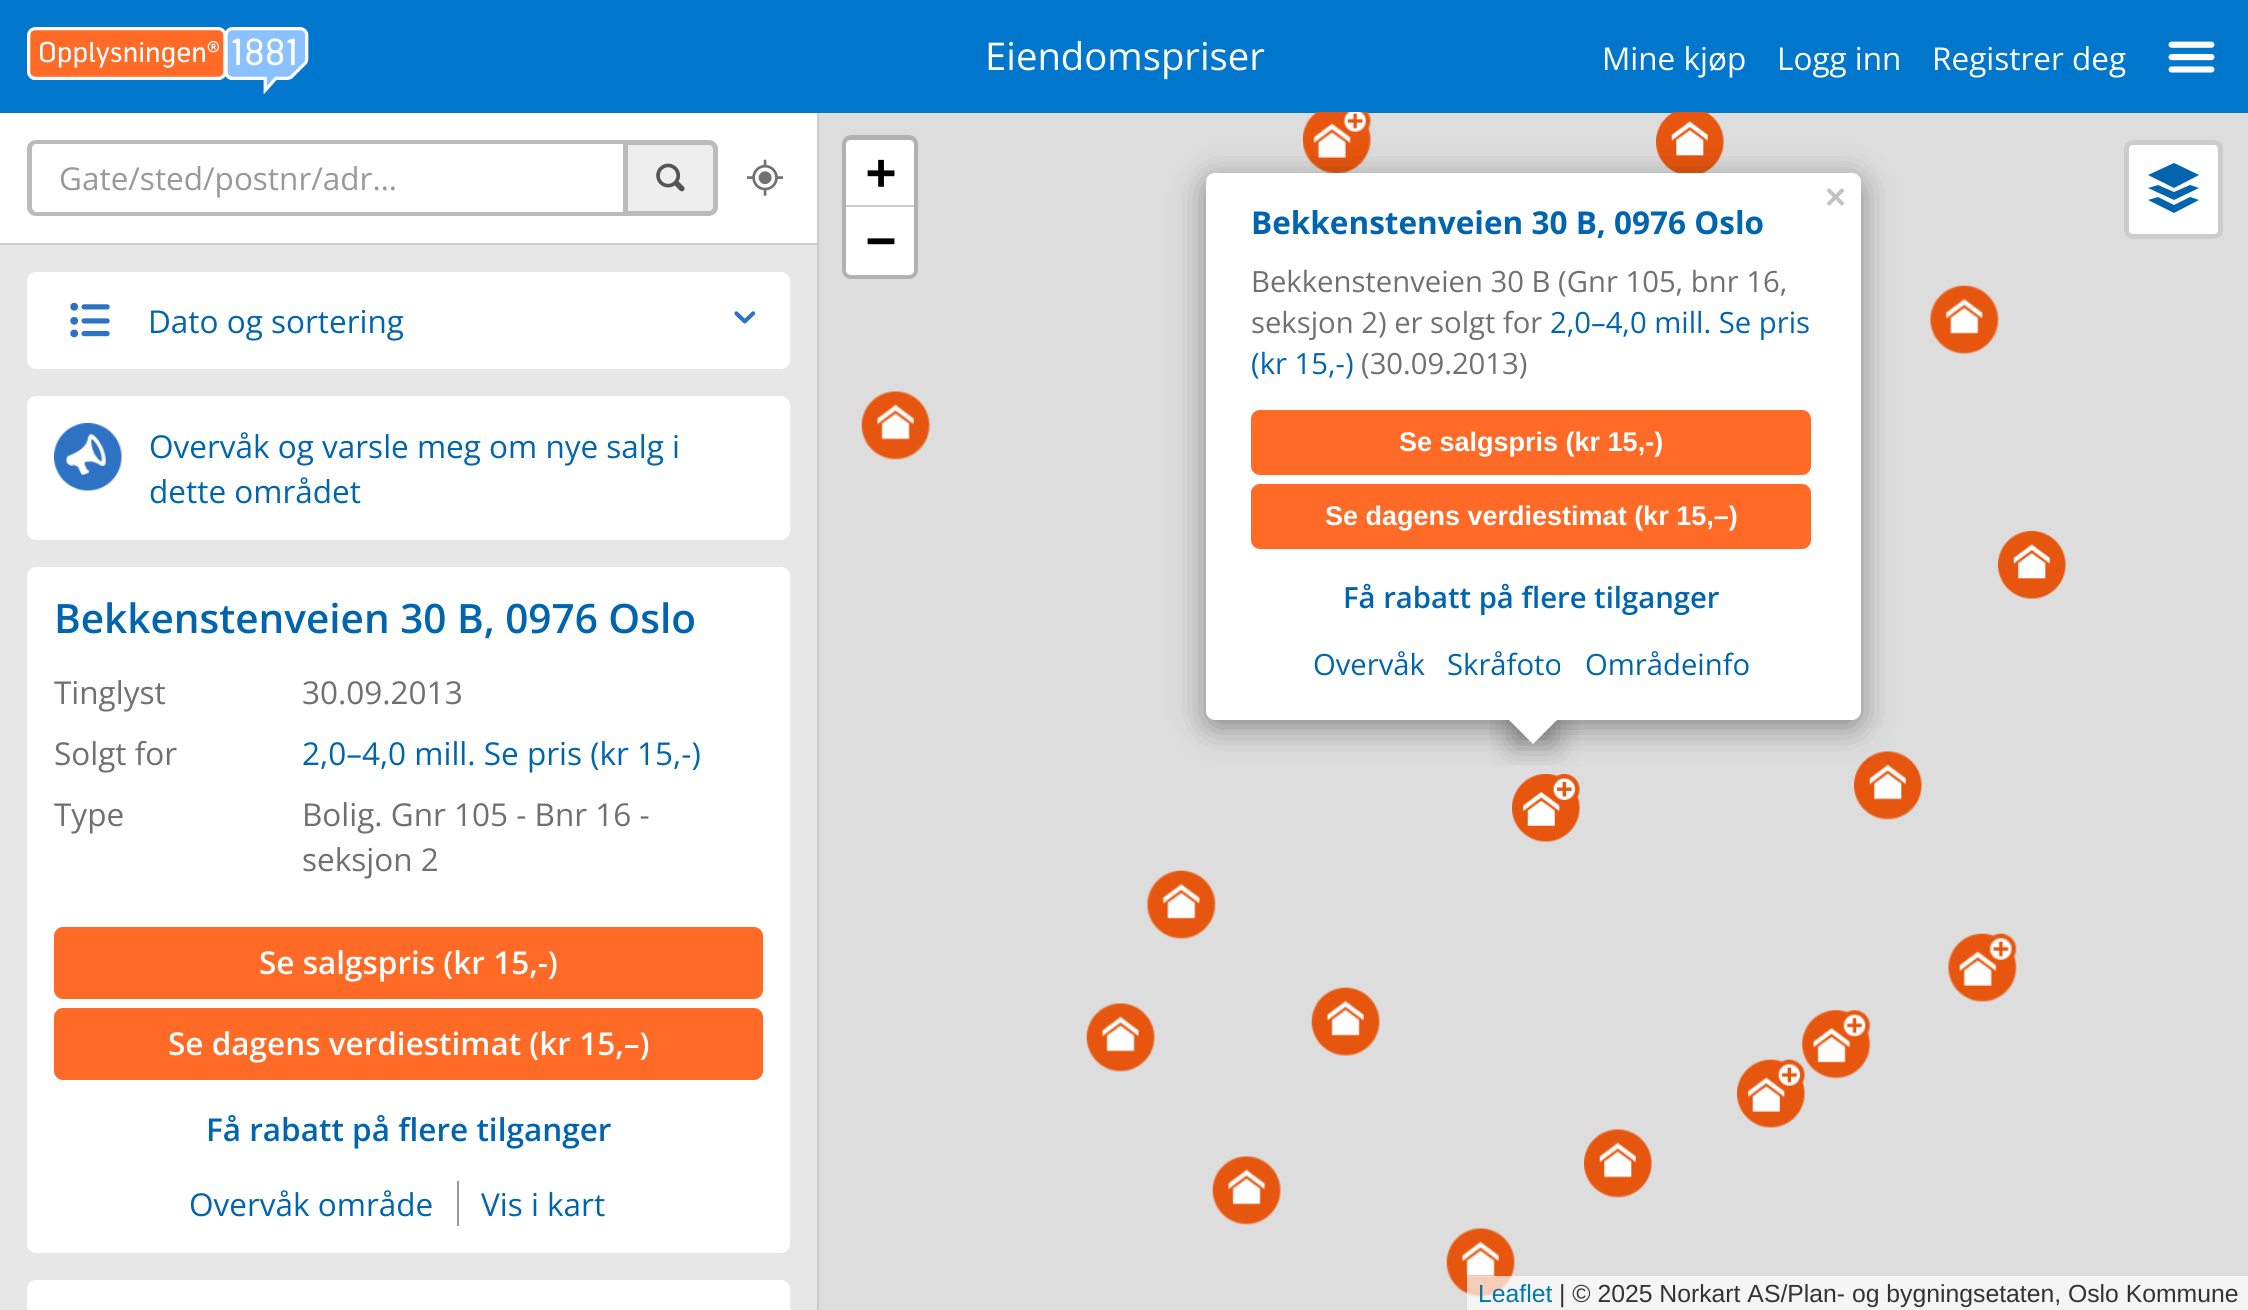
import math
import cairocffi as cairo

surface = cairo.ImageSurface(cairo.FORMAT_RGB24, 2248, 1310)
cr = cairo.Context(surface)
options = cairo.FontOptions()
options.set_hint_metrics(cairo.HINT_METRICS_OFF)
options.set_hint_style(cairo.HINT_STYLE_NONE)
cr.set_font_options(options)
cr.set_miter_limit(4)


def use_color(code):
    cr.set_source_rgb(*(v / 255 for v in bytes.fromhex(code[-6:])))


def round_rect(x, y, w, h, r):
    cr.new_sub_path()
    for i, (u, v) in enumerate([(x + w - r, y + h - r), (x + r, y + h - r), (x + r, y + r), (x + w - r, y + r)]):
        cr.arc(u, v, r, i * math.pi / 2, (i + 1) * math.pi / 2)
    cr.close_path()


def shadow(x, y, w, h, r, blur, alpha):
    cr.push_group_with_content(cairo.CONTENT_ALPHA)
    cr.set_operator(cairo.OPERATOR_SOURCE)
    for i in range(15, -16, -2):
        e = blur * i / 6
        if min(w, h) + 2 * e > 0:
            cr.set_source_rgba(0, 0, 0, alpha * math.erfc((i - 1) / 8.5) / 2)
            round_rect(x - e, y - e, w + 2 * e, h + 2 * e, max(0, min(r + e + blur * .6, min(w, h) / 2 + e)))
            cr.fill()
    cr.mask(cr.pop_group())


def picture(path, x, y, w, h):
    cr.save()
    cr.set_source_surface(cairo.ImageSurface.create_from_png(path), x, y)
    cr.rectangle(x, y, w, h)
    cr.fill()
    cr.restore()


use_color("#ffffff")
cr.paint()
use_color("#0077cc")
cr.rectangle(0, 0, 2248, 113)
cr.fill()
picture("img1.png", 27, 27, 282, 68)
cr.select_font_face("Open Sans")
cr.set_font_size(38.25)
use_color("#ffffff")
cr.move_to(985, 70)
cr.show_text("Eiendomspriser")
cr.set_font_size(31.5)
cr.move_to(1602, 70)
cr.show_text("Mine kjøp")
cr.move_to(1777, 70)
cr.show_text("Logg inn")
cr.move_to(1932, 70)
cr.show_text("Registrer deg")
picture("img2.png", 2168, 41, 47, 32)
use_color("#cccccc")
cr.rectangle(817, 113, 2, 1197)
cr.fill()
use_color("#bbbbbb")
cr.set_fill_rule(cairo.FILL_RULE_EVEN_ODD)
cr.new_path()
cr.move_to(36, 140)
cr.line_to(623, 140)
cr.line_to(623, 216)
cr.line_to(36, 216)
cr.curve_to(31, 216, 27, 212, 27, 207)
cr.line_to(27, 148)
cr.curve_to(27, 144, 31, 140, 36, 140)
cr.close_path()
cr.move_to(36, 144)
cr.line_to(623, 144)
cr.line_to(623, 212)
cr.line_to(36, 212)
cr.curve_to(34, 212, 32, 209, 32, 207)
cr.line_to(32, 148)
cr.curve_to(32, 146, 34, 144, 36, 144)
cr.close_path()
cr.fill()
use_color("#999999")
cr.move_to(59, 190)
cr.show_text("Gate/sted/postnr/adr…")
use_color("#eeeeee")
cr.new_path()
cr.move_to(625.5, 142.5)
cr.line_to(709, 142.5)
cr.curve_to(712.5, 142.5, 715.5, 145.5, 715.5, 149)
cr.line_to(715.5, 207)
cr.curve_to(715.5, 210.5, 712.5, 213.5, 709, 213.5)
cr.line_to(625.5, 213.5)
cr.close_path()
cr.fill_preserve()
use_color("#bbbbbb")
cr.set_line_width(5)
cr.stroke()
picture("img3.png", 656, 163, 29, 29)
picture("img4.png", 747, 159, 36, 37)
use_color("#e7e7e7")
cr.rectangle(0, 245, 817, 1065)
cr.fill()
use_color("#cccccc")
cr.rectangle(0, 243, 817, 2)
cr.fill()
use_color("#ffffff")
round_rect(27, 272, 763, 97, 9)
cr.fill()
picture("img5.png", 70, 302, 40, 36)
use_color("#0065ae")
cr.move_to(148, 333)
cr.show_text("Dato og sortering")
picture("img6.png", 734, 311, 22, 13)
use_color("#ffffff")
round_rect(27, 396, 763, 144, 9)
cr.fill()
picture("img7.png", 54, 423, 68, 68)
use_color("#0065ae")
cr.move_to(149, 458)
cr.show_text("Overvåk og varsle meg om nye salg i")
cr.move_to(149, 503)
cr.show_text("dette området")
use_color("#ffffff")
round_rect(27, 567, 763, 686, 9)
cr.fill()
cr.select_font_face("Open Sans SemiBold")
cr.set_font_size(40.5)
use_color("#0065ae")
cr.move_to(54, 633)
cr.show_text("Bekkenstenveien 30 B, 0976 Oslo")
cr.select_font_face("Open Sans")
cr.set_font_size(31.5)
use_color("#707070")
cr.move_to(54, 704)
cr.show_text("Tinglyst")
cr.move_to(302, 704)
cr.show_text("30.09.2013")
cr.move_to(54, 765)
cr.show_text("Solgt for")
use_color("#0065ae")
cr.move_to(302, 765)
cr.show_text("2,0–4,0 mill. Se pris (kr 15,-)")
use_color("#707070")
cr.move_to(54, 826)
cr.show_text("Type")
cr.move_to(302, 826)
cr.show_text("Bolig. Gnr 105 - Bnr 16 -")
cr.move_to(302, 871)
cr.show_text("seksjon 2")
use_color("#ff6a26")
round_rect(54, 927, 709, 72, 9)
cr.fill()
cr.select_font_face("Open Sans SemiBold")
use_color("#ffffff")
cr.move_to(259, 974)
cr.show_text("Se salgspris (kr 15,-)")
use_color("#ff6a26")
round_rect(54, 1008, 709, 72, 9)
cr.fill()
use_color("#ffffff")
cr.move_to(168, 1055)
cr.show_text("Se dagens verdiestimat (kr 15,–)")
use_color("#0065ae")
cr.move_to(206, 1141)
cr.show_text("Få rabatt på flere tilganger")
use_color("#999999")
cr.rectangle(457, 1181, 2, 45)
cr.fill()
cr.select_font_face("Open Sans")
use_color("#0065ae")
cr.move_to(189, 1216)
cr.show_text("Overvåk område")
cr.move_to(481, 1216)
cr.show_text("Vis i kart")
use_color("#ffffff")
cr.new_path()
cr.move_to(36, 1280)
cr.line_to(781, 1280)
cr.curve_to(786, 1280, 790, 1284, 790, 1289)
cr.line_to(790, 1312)
cr.line_to(27, 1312)
cr.line_to(27, 1289)
cr.curve_to(27, 1284, 31, 1280, 36, 1280)
cr.close_path()
cr.fill()
use_color("#dddddd")
cr.rectangle(819, 113, 1429, 1197)
cr.fill()
use_color("#ffffff")
round_rect(2124, 140, 99, 99, 9)
cr.fill()
round_rect(2126.5, 142.5, 94, 94, 6.5)
cr.set_source_rgba(0, 0, 0, 0.2)
cr.stroke()
use_color("#0065ae")
cr.set_fill_rule(cairo.FILL_RULE_WINDING)
cr.new_path()
cr.move_to(2148, 175)
cr.line_to(2174, 188)
cr.line_to(2199, 175)
cr.line_to(2174, 163)
cr.close_path()
cr.move_to(2174, 192)
cr.line_to(2158, 185)
cr.line_to(2148, 188)
cr.line_to(2174, 200)
cr.line_to(2199, 188)
cr.line_to(2190, 185)
cr.close_path()
cr.move_to(2174, 205)
cr.line_to(2158, 197)
cr.line_to(2148, 200)
cr.line_to(2174, 213)
cr.line_to(2199, 200)
cr.line_to(2190, 197)
cr.close_path()
cr.fill()
round_rect(844.5, 137.5, 71, 139, 6.5)
use_color("#b1b1b1")
cr.stroke()
use_color("#ffffff")
cr.new_path()
cr.move_to(851, 140)
cr.line_to(909, 140)
cr.curve_to(912, 140, 914, 142, 914, 145)
cr.line_to(914, 207)
cr.line_to(846, 207)
cr.line_to(846, 145)
cr.curve_to(846, 142, 848, 140, 851, 140)
cr.close_path()
cr.fill()
use_color("#cccccc")
cr.rectangle(846, 205, 68, 2)
cr.fill()
cr.select_font_face("DejaVu Sans Mono", cairo.FONT_SLANT_NORMAL, cairo.FONT_WEIGHT_BOLD)
cr.set_font_size(50)
use_color("#000000")
cr.move_to(866, 189)
cr.show_text("+")
use_color("#ffffff")
cr.new_path()
cr.move_to(846, 207)
cr.line_to(914, 207)
cr.line_to(914, 270)
cr.curve_to(914, 273, 912, 275, 909, 275)
cr.line_to(851, 275)
cr.curve_to(848, 275, 846, 273, 846, 270)
cr.close_path()
cr.fill()
use_color("#000000")
cr.move_to(866, 257)
cr.show_text("−")
picture("img11.png", 1446, 1228, 69, 69)
cr.set_source_rgba(1, 1, 1, 0.7)
cr.rectangle(1467, 1276, 781, 34)
cr.fill()
cr.select_font_face("Liberation Sans")
cr.set_font_size(24.75)
use_color("#0078a8")
cr.move_to(1478, 1302)
cr.show_text("Leaflet")
use_color("#333333")
cr.move_to(1559, 1302)
cr.show_text("| © 2025 Norkart AS/Plan- og bygningsetaten, Oslo Kommune")
picture("img8.png", 1303, 112, 68, 61)
picture("img9.png", 1656, 112, 68, 61)
picture("img10.png", 1930, 285, 69, 69)
picture("img11.png", 861, 391, 69, 69)
picture("img12.png", 1998, 531, 68, 68)
picture("img13.png", 1512, 774, 68, 68)
picture("img14.png", 1854, 751, 68, 69)
picture("img10.png", 1147, 870, 69, 69)
picture("img15.png", 1948, 933, 69, 69)
picture("img11.png", 1086, 1003, 69, 69)
picture("img16.png", 1311, 987, 69, 69)
picture("img17.png", 1802, 1010, 69, 69)
picture("img18.png", 1737, 1059, 68, 69)
picture("img11.png", 1212, 1156, 69, 69)
picture("img14.png", 1584, 1129, 68, 69)
use_color("#000000")
shadow(1206, 180, 655, 547, 9, 16, 0.4)
use_color("#ffffff")
round_rect(1206, 173, 655, 547, 9)
cr.fill()
cr.select_font_face("Liberation Sans", cairo.FONT_SLANT_NORMAL, cairo.FONT_WEIGHT_BOLD)
cr.set_font_size(36)
use_color("#c3c3c3")
cr.move_to(1825, 209)
cr.show_text("×")
cr.select_font_face("Open Sans", cairo.FONT_SLANT_NORMAL, cairo.FONT_WEIGHT_BOLD)
cr.set_font_size(31.5)
use_color("#0065ae")
cr.move_to(1251, 234)
cr.show_text("Bekkenstenveien 30 B, 0976 Oslo")
cr.select_font_face("Open Sans")
cr.set_font_size(29.25)
use_color("#707070")
cr.move_to(1251, 292)
cr.show_text("Bekkenstenveien 30 B (Gnr 105, bnr 16,")
cr.move_to(1251, 333)
cr.show_text("seksjon 2) er solgt for")
use_color("#0065ae")
cr.move_to(1550, 333)
cr.show_text("2,0–4,0 mill. Se pris")
cr.move_to(1251, 374)
cr.show_text("(kr 15,-)")
use_color("#707070")
cr.move_to(1361, 374)
cr.show_text("(30.09.2013)")
use_color("#ff6a26")
round_rect(1251, 410, 560, 65, 9)
cr.fill()
cr.select_font_face("Liberation Sans", cairo.FONT_SLANT_NORMAL, cairo.FONT_WEIGHT_BOLD)
cr.set_font_size(27)
use_color("#ffffff")
cr.move_to(1399, 451)
cr.show_text("Se salgspris (kr 15,-)")
use_color("#ff6a26")
round_rect(1251, 484, 560, 65, 9)
cr.fill()
use_color("#ffffff")
cr.move_to(1325, 525)
cr.show_text("Se dagens verdiestimat (kr 15,–)")
cr.select_font_face("Open Sans SemiBold")
cr.set_font_size(29.25)
use_color("#0065ae")
cr.move_to(1343, 608)
cr.show_text("Få rabatt på flere tilganger")
cr.select_font_face("Open Sans")
cr.move_to(1313, 675)
cr.show_text("Overvåk")
cr.move_to(1447, 675)
cr.show_text("Skråfoto")
cr.move_to(1585, 675)
cr.show_text("Områdeinfo")
cr.save()
cr.rectangle(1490, 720, 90, 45)
cr.clip()
use_color("#000000")
shadow(1514, 704, 39, 39, 0, 16, 0.4)
cr.restore()
cr.save()
cr.rectangle(1490, 720, 90, 45)
cr.clip()
use_color("#ffffff")
cr.new_path()
cr.move_to(1533, 690)
cr.line_to(1560, 717)
cr.line_to(1533, 744)
cr.line_to(1506, 717)
cr.close_path()
cr.fill()
cr.restore()
surface.write_to_png("result.png")
